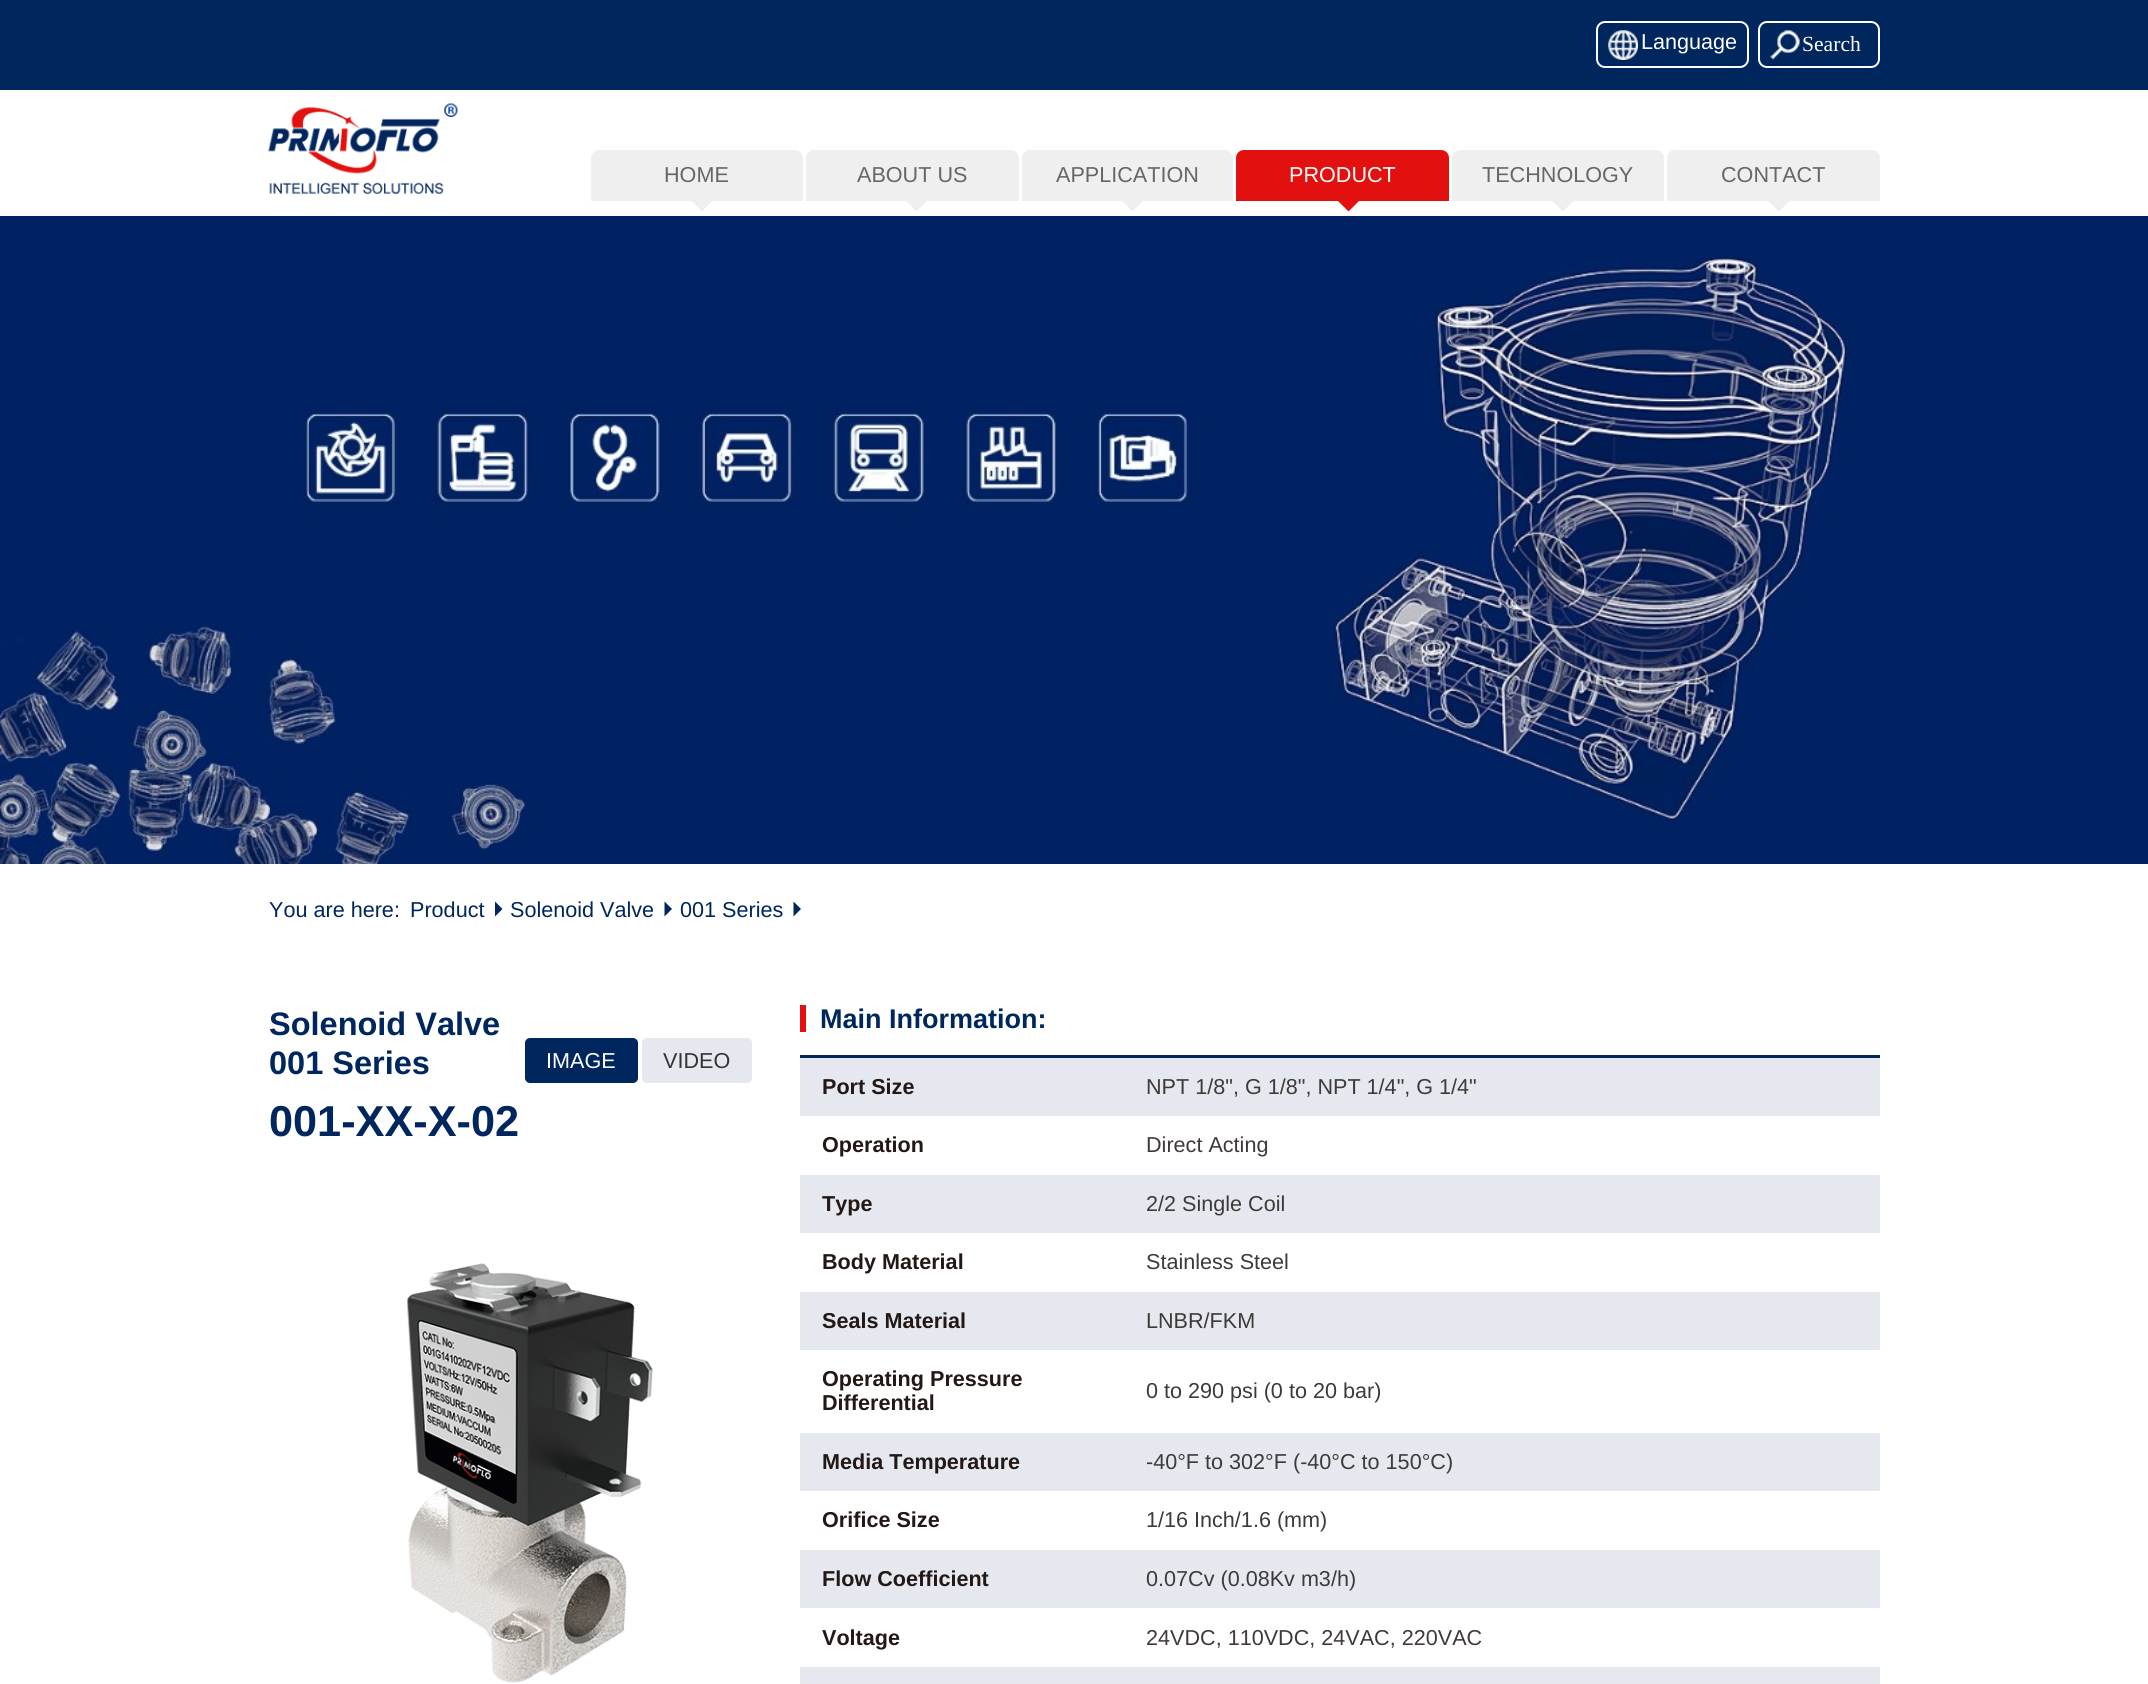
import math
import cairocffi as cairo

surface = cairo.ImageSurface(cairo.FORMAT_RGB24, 2148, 1684)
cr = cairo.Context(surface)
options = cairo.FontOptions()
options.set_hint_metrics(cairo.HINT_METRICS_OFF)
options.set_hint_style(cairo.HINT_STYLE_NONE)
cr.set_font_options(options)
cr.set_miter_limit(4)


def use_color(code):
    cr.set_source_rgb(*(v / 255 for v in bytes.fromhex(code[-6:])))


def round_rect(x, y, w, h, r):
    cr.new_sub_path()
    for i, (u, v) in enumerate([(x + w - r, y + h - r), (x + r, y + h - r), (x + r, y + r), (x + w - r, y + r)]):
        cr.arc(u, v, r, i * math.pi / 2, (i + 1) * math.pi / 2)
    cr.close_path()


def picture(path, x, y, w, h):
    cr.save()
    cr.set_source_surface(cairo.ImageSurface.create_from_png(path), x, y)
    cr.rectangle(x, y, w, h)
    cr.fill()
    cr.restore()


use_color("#ffffff")
cr.paint()
use_color("#00265e")
cr.rectangle(0, 0, 2148, 90)
cr.fill()
picture("img1.png", 1608, 30, 30, 30)
round_rect(1597, 22, 151, 45, 8)
use_color("#ffffff")
cr.stroke()
cr.select_font_face("Liberation Sans")
cr.set_font_size(21.6)
cr.move_to(1641, 49)
cr.show_text("Language")
picture("img2.png", 1770, 30, 30, 30)
round_rect(1759, 22, 120, 45, 8)
cr.stroke()
cr.select_font_face("Liberation Serif")
cr.move_to(1802, 51)
cr.show_text("Search")
picture("img3.png", 268, 103, 190, 91)
use_color("#efefef")
cr.new_path()
cr.move_to(599, 150)
cr.line_to(795, 150)
cr.curve_to(799.5, 150, 803, 153.5, 803, 158)
cr.line_to(803, 201)
cr.line_to(591, 201)
cr.line_to(591, 158)
cr.curve_to(591, 153.5, 594.5, 150, 599, 150)
cr.close_path()
cr.fill()
cr.select_font_face("Liberation Sans")
use_color("#666666")
cr.move_to(664, 182)
cr.show_text("HOME")
use_color("#efefef")
cr.new_path()
cr.move_to(691.5, 201)
cr.line_to(712.5, 201)
cr.line_to(702, 211.5)
cr.close_path()
cr.fill()
cr.new_path()
cr.move_to(814, 150)
cr.line_to(1011, 150)
cr.curve_to(1015.5, 150, 1019, 153.5, 1019, 158)
cr.line_to(1019, 201)
cr.line_to(806, 201)
cr.line_to(806, 158)
cr.curve_to(806, 153.5, 809.5, 150, 814, 150)
cr.close_path()
cr.fill()
use_color("#666666")
cr.move_to(857, 182)
cr.show_text("ABOUT US")
use_color("#efefef")
cr.new_path()
cr.move_to(906, 201)
cr.line_to(927, 201)
cr.line_to(916.5, 211.5)
cr.close_path()
cr.fill()
cr.new_path()
cr.move_to(1030, 150)
cr.line_to(1225, 150)
cr.curve_to(1229.5, 150, 1233, 153.5, 1233, 158)
cr.line_to(1233, 201)
cr.line_to(1022, 201)
cr.line_to(1022, 158)
cr.curve_to(1022, 153.5, 1025.5, 150, 1030, 150)
cr.close_path()
cr.fill()
use_color("#666666")
cr.move_to(1056, 182)
cr.show_text("APPLICATION")
use_color("#efefef")
cr.new_path()
cr.move_to(1122, 201)
cr.line_to(1143, 201)
cr.line_to(1132.5, 211.5)
cr.close_path()
cr.fill()
use_color("#e2100f")
cr.new_path()
cr.move_to(1244, 150)
cr.line_to(1441, 150)
cr.curve_to(1445.5, 150, 1449, 153.5, 1449, 158)
cr.line_to(1449, 201)
cr.line_to(1236, 201)
cr.line_to(1236, 158)
cr.curve_to(1236, 153.5, 1239.5, 150, 1244, 150)
cr.close_path()
cr.fill()
use_color("#ffffff")
cr.move_to(1289, 182)
cr.show_text("PRODUCT")
use_color("#e2100f")
cr.new_path()
cr.move_to(1338, 201)
cr.line_to(1359, 201)
cr.line_to(1348.5, 211.5)
cr.close_path()
cr.fill()
use_color("#efefef")
cr.new_path()
cr.move_to(1460, 150)
cr.line_to(1656, 150)
cr.curve_to(1660.5, 150, 1664, 153.5, 1664, 158)
cr.line_to(1664, 201)
cr.line_to(1452, 201)
cr.line_to(1452, 158)
cr.curve_to(1452, 153.5, 1455.5, 150, 1460, 150)
cr.close_path()
cr.fill()
use_color("#666666")
cr.move_to(1482, 182)
cr.show_text("TECHNOLOGY")
use_color("#efefef")
cr.new_path()
cr.move_to(1552.5, 201)
cr.line_to(1573.5, 201)
cr.line_to(1563, 211.5)
cr.close_path()
cr.fill()
cr.new_path()
cr.move_to(1675, 150)
cr.line_to(1872, 150)
cr.curve_to(1876.5, 150, 1880, 153.5, 1880, 158)
cr.line_to(1880, 201)
cr.line_to(1667, 201)
cr.line_to(1667, 158)
cr.curve_to(1667, 153.5, 1670.5, 150, 1675, 150)
cr.close_path()
cr.fill()
use_color("#666666")
cr.move_to(1721, 182)
cr.show_text("CONTACT")
use_color("#efefef")
cr.new_path()
cr.move_to(1768.5, 201)
cr.line_to(1789.5, 201)
cr.line_to(1779, 211.5)
cr.close_path()
cr.fill()
picture("img4.png", 0, 216, 2148, 648)
use_color("#00265e")
cr.move_to(269, 917)
cr.show_text("You are here:")
cr.move_to(410, 917)
cr.show_text("Product")
cr.new_path()
cr.move_to(495, 916.5)
cr.line_to(495, 901.5)
cr.line_to(502.5, 909)
cr.close_path()
cr.fill()
cr.move_to(510, 917)
cr.show_text("Solenoid Valve")
cr.new_path()
cr.move_to(664.5, 916.5)
cr.line_to(664.5, 901.5)
cr.line_to(672, 909)
cr.close_path()
cr.fill()
cr.move_to(680, 917)
cr.show_text("001 Series")
cr.new_path()
cr.move_to(793.5, 916.5)
cr.line_to(793.5, 901.5)
cr.line_to(801, 909)
cr.close_path()
cr.fill()
cr.select_font_face("Liberation Sans", cairo.FONT_SLANT_NORMAL, cairo.FONT_WEIGHT_BOLD)
cr.set_font_size(32.5)
cr.move_to(269, 1035)
cr.show_text("Solenoid Valve")
cr.move_to(269, 1074)
cr.show_text("001 Series")
round_rect(525, 1038, 113, 45, 5)
cr.fill()
cr.select_font_face("Liberation Sans")
cr.set_font_size(21.6)
use_color("#ffffff")
cr.move_to(546, 1068)
cr.show_text("IMAGE")
use_color("#e5e9ef")
round_rect(642, 1038, 110, 45, 5)
cr.fill()
use_color("#333333")
cr.move_to(663, 1068)
cr.show_text("VIDEO")
picture("img5.png", 406, 1263, 247, 420)
cr.select_font_face("Liberation Sans", cairo.FONT_SLANT_NORMAL, cairo.FONT_WEIGHT_BOLD)
cr.set_font_size(43.25)
use_color("#00265e")
cr.move_to(269, 1136)
cr.show_text("001-XX-X-02")
use_color("#e2100f")
cr.rectangle(800, 1005, 6, 27)
cr.fill()
cr.set_font_size(27)
use_color("#00265e")
cr.move_to(820, 1028)
cr.show_text("Main Information:")
cr.rectangle(800, 1055, 1080, 3)
cr.fill()
use_color("#e5e9ef")
cr.rectangle(800, 1058, 1080, 58)
cr.fill()
cr.set_font_size(21.6)
use_color("#231815")
cr.move_to(822, 1094)
cr.show_text("Port Size")
cr.select_font_face("Liberation Sans")
use_color("#3f3a39")
cr.move_to(1146, 1094)
cr.show_text("NPT 1/8\", G 1/8\", NPT 1/4\", G 1/4\"")
cr.select_font_face("Liberation Sans", cairo.FONT_SLANT_NORMAL, cairo.FONT_WEIGHT_BOLD)
use_color("#231815")
cr.move_to(822, 1152)
cr.show_text("Operation")
cr.select_font_face("Liberation Sans")
use_color("#3f3a39")
cr.move_to(1146, 1152)
cr.show_text("Direct Acting")
use_color("#e5e9ef")
cr.rectangle(800, 1175, 1080, 58)
cr.fill()
cr.select_font_face("Liberation Sans", cairo.FONT_SLANT_NORMAL, cairo.FONT_WEIGHT_BOLD)
use_color("#231815")
cr.move_to(822, 1211)
cr.show_text("Type")
cr.select_font_face("Liberation Sans")
use_color("#3f3a39")
cr.move_to(1146, 1211)
cr.show_text("2/2 Single Coil")
cr.select_font_face("Liberation Sans", cairo.FONT_SLANT_NORMAL, cairo.FONT_WEIGHT_BOLD)
use_color("#231815")
cr.move_to(822, 1269)
cr.show_text("Body Material")
cr.select_font_face("Liberation Sans")
use_color("#3f3a39")
cr.move_to(1146, 1269)
cr.show_text("Stainless Steel")
use_color("#e5e9ef")
cr.rectangle(800, 1292, 1080, 58)
cr.fill()
cr.select_font_face("Liberation Sans", cairo.FONT_SLANT_NORMAL, cairo.FONT_WEIGHT_BOLD)
use_color("#231815")
cr.move_to(822, 1328)
cr.show_text("Seals Material")
cr.select_font_face("Liberation Sans")
use_color("#3f3a39")
cr.move_to(1146, 1328)
cr.show_text("LNBR/FKM")
cr.select_font_face("Liberation Sans", cairo.FONT_SLANT_NORMAL, cairo.FONT_WEIGHT_BOLD)
use_color("#231815")
cr.move_to(822, 1386)
cr.show_text("Operating Pressure")
cr.move_to(822, 1410)
cr.show_text("Differential")
cr.select_font_face("Liberation Sans")
use_color("#3f3a39")
cr.move_to(1146, 1398)
cr.show_text("0 to 290 psi (0 to 20 bar)")
use_color("#e5e9ef")
cr.rectangle(800, 1433, 1080, 58)
cr.fill()
cr.select_font_face("Liberation Sans", cairo.FONT_SLANT_NORMAL, cairo.FONT_WEIGHT_BOLD)
use_color("#231815")
cr.move_to(822, 1469)
cr.show_text("Media Temperature")
cr.select_font_face("Liberation Sans")
use_color("#3f3a39")
cr.move_to(1146, 1469)
cr.show_text("-40°F to 302°F (-40°C to 150°C)")
cr.select_font_face("Liberation Sans", cairo.FONT_SLANT_NORMAL, cairo.FONT_WEIGHT_BOLD)
use_color("#231815")
cr.move_to(822, 1527)
cr.show_text("Orifice Size")
cr.select_font_face("Liberation Sans")
use_color("#3f3a39")
cr.move_to(1146, 1527)
cr.show_text("1/16 Inch/1.6 (mm)")
use_color("#e5e9ef")
cr.rectangle(800, 1550, 1080, 58)
cr.fill()
cr.select_font_face("Liberation Sans", cairo.FONT_SLANT_NORMAL, cairo.FONT_WEIGHT_BOLD)
use_color("#231815")
cr.move_to(822, 1586)
cr.show_text("Flow Coefficient")
cr.select_font_face("Liberation Sans")
use_color("#3f3a39")
cr.move_to(1146, 1586)
cr.show_text("0.07Cv (0.08Kv m3/h)")
cr.select_font_face("Liberation Sans", cairo.FONT_SLANT_NORMAL, cairo.FONT_WEIGHT_BOLD)
use_color("#231815")
cr.move_to(822, 1645)
cr.show_text("Voltage")
cr.select_font_face("Liberation Sans")
use_color("#3f3a39")
cr.move_to(1146, 1645)
cr.show_text("24VDC, 110VDC, 24VAC, 220VAC")
use_color("#e5e9ef")
cr.rectangle(800, 1667, 1080, 17)
cr.fill()
surface.write_to_png("result.png")
